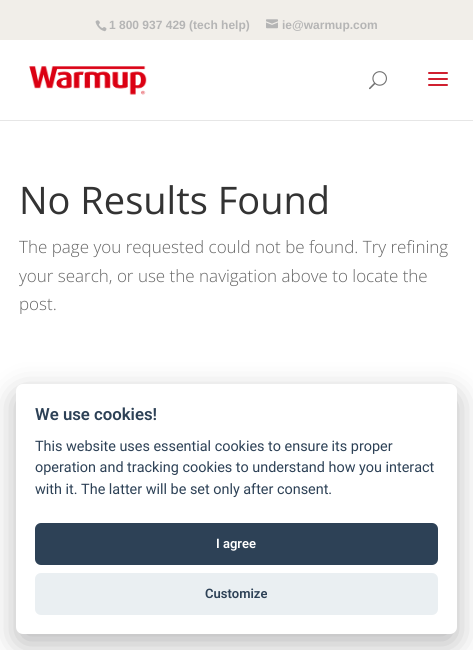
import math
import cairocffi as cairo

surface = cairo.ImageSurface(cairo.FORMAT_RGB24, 473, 650)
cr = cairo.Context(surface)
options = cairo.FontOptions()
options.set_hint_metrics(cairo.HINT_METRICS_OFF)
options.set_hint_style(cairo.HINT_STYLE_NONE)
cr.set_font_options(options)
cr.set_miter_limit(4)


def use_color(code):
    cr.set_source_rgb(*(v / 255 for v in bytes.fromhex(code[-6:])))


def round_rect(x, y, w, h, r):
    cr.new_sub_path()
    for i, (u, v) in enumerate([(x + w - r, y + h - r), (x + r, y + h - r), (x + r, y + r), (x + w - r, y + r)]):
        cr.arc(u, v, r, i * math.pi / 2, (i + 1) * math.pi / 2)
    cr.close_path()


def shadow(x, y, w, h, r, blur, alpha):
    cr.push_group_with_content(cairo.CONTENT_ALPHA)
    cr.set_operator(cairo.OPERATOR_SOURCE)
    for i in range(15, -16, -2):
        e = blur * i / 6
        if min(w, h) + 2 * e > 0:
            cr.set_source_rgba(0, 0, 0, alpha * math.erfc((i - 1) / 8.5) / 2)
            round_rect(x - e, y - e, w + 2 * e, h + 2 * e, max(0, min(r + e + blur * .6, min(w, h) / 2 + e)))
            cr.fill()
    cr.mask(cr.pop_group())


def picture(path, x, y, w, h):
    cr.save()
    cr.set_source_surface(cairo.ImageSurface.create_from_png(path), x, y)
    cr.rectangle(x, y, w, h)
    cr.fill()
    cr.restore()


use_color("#f1eee9")
cr.paint()
picture("img1.png", 95, 20, 12, 12)
cr.select_font_face("Liberation Sans", cairo.FONT_SLANT_NORMAL, cairo.FONT_WEIGHT_BOLD)
cr.set_font_size(12)
use_color("#b5b5b5")
cr.move_to(109, 29)
cr.show_text("1 800 937 429 (tech help)")
picture("img2.png", 266, 19, 12, 10)
cr.move_to(282, 29)
cr.show_text("ie@warmup.com")
use_color("#e6e6e6")
cr.rectangle(0, 120, 473, 1)
cr.fill()
use_color("#ffffff")
cr.rectangle(0, 40, 473, 80)
cr.fill()
picture("img3.png", 29, 66, 118, 29)
picture("img4.png", 369, 71, 18, 19)
picture("img5.png", 428, 72, 20, 14)
cr.rectangle(0, 121, 473, 529)
cr.fill()
cr.select_font_face("Open Sans")
cr.set_font_size(38)
use_color("#333333")
cr.move_to(19, 214)
cr.show_text("No Results Found")
cr.select_font_face("Open Sans Light")
cr.set_font_size(17)
use_color("#666666")
cr.move_to(19, 253)
cr.show_text("The page you requested could not be found. Try refining")
cr.move_to(19, 282)
cr.show_text("your search, or use the navigation above to locate the")
cr.move_to(19, 310)
cr.show_text("post.")
use_color("#020203")
shadow(16, 394, 441, 250, 7, 15, 0.28)
use_color("#ffffff")
round_rect(16, 384, 441, 250, 7)
cr.fill()
cr.select_font_face("Roboto SemiBold")
cr.set_font_size(16.75)
use_color("#2d4156")
cr.move_to(35, 420)
cr.show_text("We use cookies!")
cr.select_font_face("Roboto")
cr.set_font_size(14.4)
cr.move_to(35, 451)
cr.show_text("This website uses essential cookies to ensure its proper")
cr.move_to(35, 472)
cr.show_text("operation and tracking cookies to understand how you interact")
cr.move_to(35, 494)
cr.show_text("with it. The latter will be set only after consent.")
round_rect(35, 523, 403, 42, 6)
cr.fill()
cr.select_font_face("Roboto SemiBold")
cr.set_font_size(13)
use_color("#ffffff")
cr.move_to(216, 548)
cr.show_text("I agree")
use_color("#eaeff2")
round_rect(35, 573, 403, 42, 6)
cr.fill()
use_color("#2d4156")
cr.move_to(205, 598)
cr.show_text("Customize")
surface.write_to_png("result.png")
